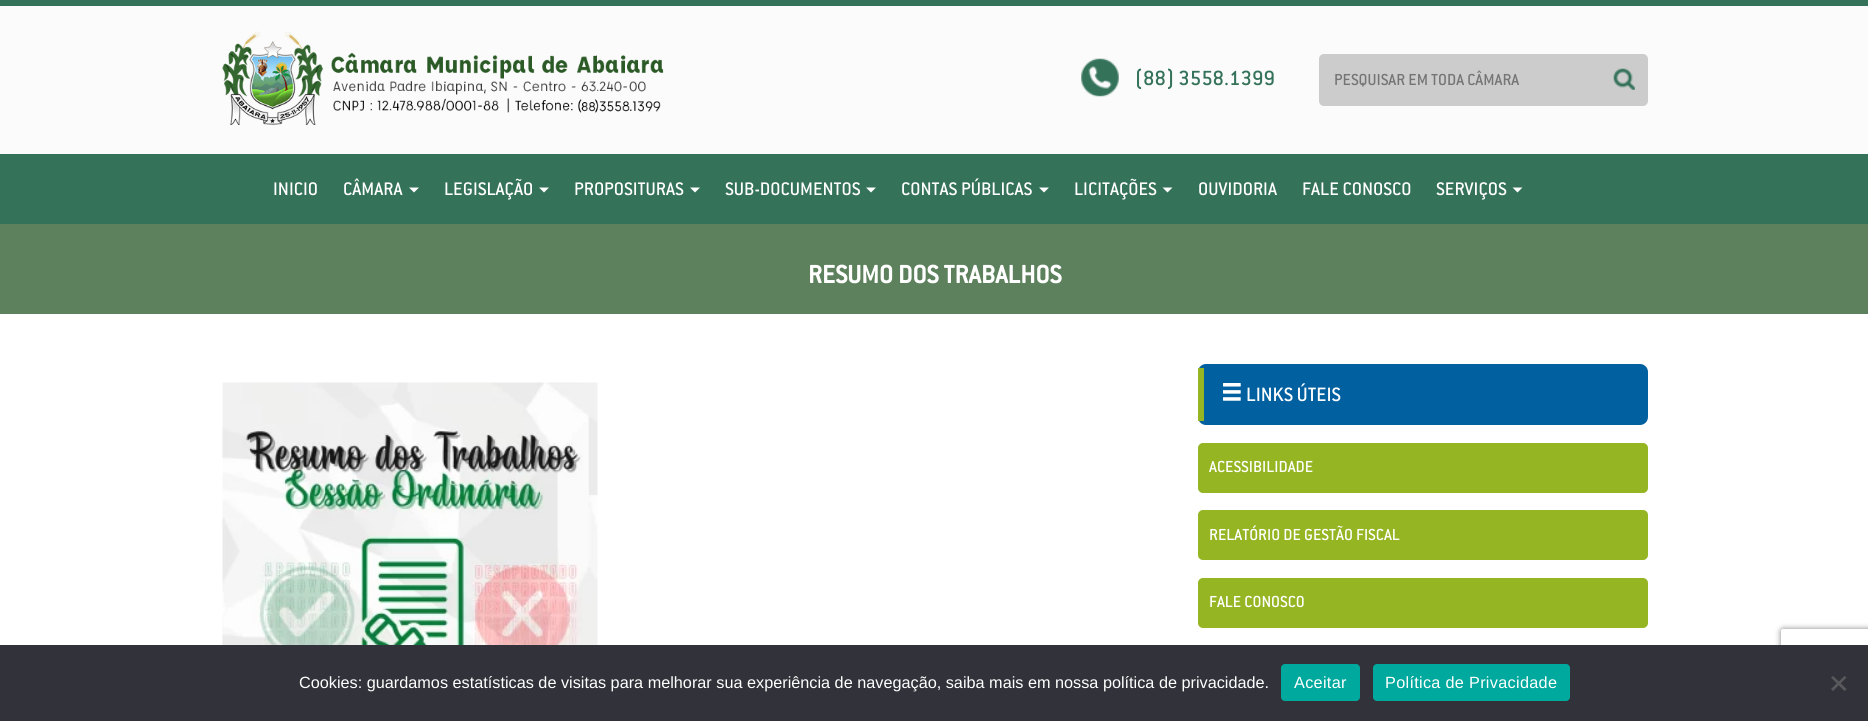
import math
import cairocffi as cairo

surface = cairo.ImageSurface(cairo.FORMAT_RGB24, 1868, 721)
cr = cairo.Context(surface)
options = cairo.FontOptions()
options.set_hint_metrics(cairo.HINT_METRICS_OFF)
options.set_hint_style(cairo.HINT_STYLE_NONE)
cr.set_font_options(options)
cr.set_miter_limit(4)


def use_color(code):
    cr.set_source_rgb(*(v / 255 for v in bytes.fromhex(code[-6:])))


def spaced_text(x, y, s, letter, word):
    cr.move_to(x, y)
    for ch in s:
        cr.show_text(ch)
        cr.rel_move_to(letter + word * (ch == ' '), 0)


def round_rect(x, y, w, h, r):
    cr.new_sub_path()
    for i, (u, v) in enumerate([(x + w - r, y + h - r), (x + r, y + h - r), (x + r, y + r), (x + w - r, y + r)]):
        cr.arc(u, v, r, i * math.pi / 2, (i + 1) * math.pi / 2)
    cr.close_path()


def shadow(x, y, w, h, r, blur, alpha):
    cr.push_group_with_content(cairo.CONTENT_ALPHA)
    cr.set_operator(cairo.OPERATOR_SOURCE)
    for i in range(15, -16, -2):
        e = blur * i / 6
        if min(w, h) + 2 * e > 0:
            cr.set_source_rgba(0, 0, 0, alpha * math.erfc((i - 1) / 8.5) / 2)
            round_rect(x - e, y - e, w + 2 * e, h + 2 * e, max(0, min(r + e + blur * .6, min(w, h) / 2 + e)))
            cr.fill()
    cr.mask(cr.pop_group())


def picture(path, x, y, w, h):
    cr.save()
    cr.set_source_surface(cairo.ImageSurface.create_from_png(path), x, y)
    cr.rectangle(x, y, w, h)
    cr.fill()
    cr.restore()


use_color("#ffffff")
cr.paint()
use_color("#fbfbfb")
cr.rectangle(0, 6, 1868, 148)
cr.fill()
use_color("#347259")
cr.rectangle(0, 0, 1868, 6)
cr.fill()
picture("img1.png", 222, 31, 442, 94)
picture("img2.png", 1081, 58, 38, 39)
cr.select_font_face("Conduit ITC")
cr.set_font_size(22.5)
cr.move_to(1135, 85)
cr.show_text("(88) 3558.1399")
use_color("#cccccc")
round_rect(1319, 54, 329, 52, 5)
cr.fill()
cr.set_font_size(17.5)
use_color("#757575")
cr.move_to(1334, 85)
cr.show_text("PESQUISAR EM TODA CÂMARA")
picture("img3.png", 1613, 68, 22, 22)
use_color("#347259")
cr.rectangle(0, 154, 1868, 70)
cr.fill()
cr.set_font_size(20)
use_color("#ffffff")
cr.move_to(273, 195)
cr.show_text("INICIO")
cr.move_to(343, 195)
cr.show_text("CÂMARA")
cr.new_path()
cr.move_to(409, 187.5)
cr.line_to(419, 187.5)
cr.line_to(414, 192.5)
cr.close_path()
cr.fill()
cr.move_to(444, 195)
cr.show_text("LEGISLAÇÃO")
cr.new_path()
cr.move_to(539, 187.5)
cr.line_to(549, 187.5)
cr.line_to(544, 192.5)
cr.close_path()
cr.fill()
cr.move_to(574, 195)
cr.show_text("PROPOSITURAS")
cr.new_path()
cr.move_to(690, 187.5)
cr.line_to(700, 187.5)
cr.line_to(695, 192.5)
cr.close_path()
cr.fill()
cr.move_to(725, 195)
cr.show_text("SUB-DOCUMENTOS")
cr.new_path()
cr.move_to(866, 187.5)
cr.line_to(876, 187.5)
cr.line_to(871, 192.5)
cr.close_path()
cr.fill()
cr.move_to(901, 195)
cr.show_text("CONTAS PÚBLICAS")
cr.new_path()
cr.move_to(1039, 187.5)
cr.line_to(1049, 187.5)
cr.line_to(1044, 192.5)
cr.close_path()
cr.fill()
cr.move_to(1074, 195)
cr.show_text("LICITAÇÕES")
cr.new_path()
cr.move_to(1162.5, 187.5)
cr.line_to(1172.5, 187.5)
cr.line_to(1167.5, 192.5)
cr.close_path()
cr.fill()
cr.move_to(1198, 195)
cr.show_text("OUVIDORIA")
cr.move_to(1302, 195)
cr.show_text("FALE CONOSCO")
cr.move_to(1436, 195)
cr.show_text("SERVIÇOS")
cr.new_path()
cr.move_to(1512.5, 187.5)
cr.line_to(1522.5, 187.5)
cr.line_to(1517.5, 192.5)
cr.close_path()
cr.fill()
use_color("#5c815c")
cr.rectangle(0, 224, 1868, 90)
cr.fill()
cr.select_font_face("Conduit ITC", cairo.FONT_SLANT_NORMAL, cairo.FONT_WEIGHT_BOLD)
cr.set_font_size(27.5)
use_color("#ffffff")
cr.move_to(808, 283)
cr.show_text("RESUMO DOS TRABALHOS")
picture("img4.png", 222, 382, 376, 263)
use_color("#0160a0")
round_rect(1198, 364, 450, 61, 8)
cr.fill()
use_color("#95b523")
cr.rectangle(1198, 368, 6, 53)
cr.fill()
picture("img5.png", 1223, 383, 18, 18)
cr.select_font_face("Conduit ITC")
cr.set_font_size(21.25)
use_color("#ffffff")
cr.move_to(1246, 401)
cr.show_text("LINKS ÚTEIS")
use_color("#95b523")
round_rect(1198, 443, 450, 50, 5)
cr.fill()
cr.set_font_size(17.5)
use_color("#ffffff")
cr.move_to(1209, 472)
cr.show_text("ACESSIBILIDADE")
use_color("#95b523")
round_rect(1198, 510, 450, 50, 5)
cr.fill()
use_color("#ffffff")
cr.move_to(1209, 540)
cr.show_text("RELATÓRIO DE GESTÃO FISCAL")
use_color("#95b523")
round_rect(1198, 578, 450, 50, 5)
cr.fill()
use_color("#ffffff")
cr.move_to(1209, 607)
cr.show_text("FALE CONOSCO")
cr.save()
cr.set_fill_rule(cairo.FILL_RULE_EVEN_ODD)
cr.new_path()
cr.move_to(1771, 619)
cr.line_to(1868, 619)
cr.line_to(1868, 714)
cr.line_to(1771, 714)
cr.close_path()
cr.move_to(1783.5, 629)
cr.line_to(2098.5, 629)
cr.curve_to(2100, 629, 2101, 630, 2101, 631.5)
cr.line_to(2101, 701.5)
cr.curve_to(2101, 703, 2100, 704, 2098.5, 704)
cr.line_to(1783.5, 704)
cr.curve_to(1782, 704, 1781, 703, 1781, 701.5)
cr.line_to(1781, 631.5)
cr.curve_to(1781, 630, 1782, 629, 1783.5, 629)
cr.close_path()
cr.clip()
use_color("#808080")
shadow(1781, 629, 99, 75, 2.5, 3, 1)
cr.restore()
use_color("#32323a")
cr.rectangle(0, 645, 1868, 76)
cr.fill()
cr.select_font_face("Liberation Sans")
cr.set_font_size(16.25)
use_color("#ffffff")
cr.move_to(299, 688)
cr.show_text("Cookies: guardamos estatísticas de visitas para melhorar sua experiência de navegação, saiba mais em nossa política de privacidade.")
use_color("#00a99d")
round_rect(1281, 664, 79, 37, 4)
cr.fill()
use_color("#ffffff")
spaced_text(1294, 688, "Aceitar", 0.3, 0)
use_color("#00a99d")
round_rect(1373, 664, 197, 37, 4)
cr.fill()
use_color("#ffffff")
spaced_text(1385, 688, "Política de Privacidade", 0.3, 0)
use_color("#59595d")
cr.new_path()
cr.move_to(1844.5, 676)
cr.line_to(1846.5, 677.5)
cr.line_to(1833, 691)
cr.line_to(1831, 689)
cr.close_path()
cr.fill()
cr.new_path()
cr.move_to(1831, 677.5)
cr.line_to(1833, 676)
cr.line_to(1846.5, 689)
cr.line_to(1844.5, 691)
cr.close_path()
cr.fill()
surface.write_to_png("result.png")
